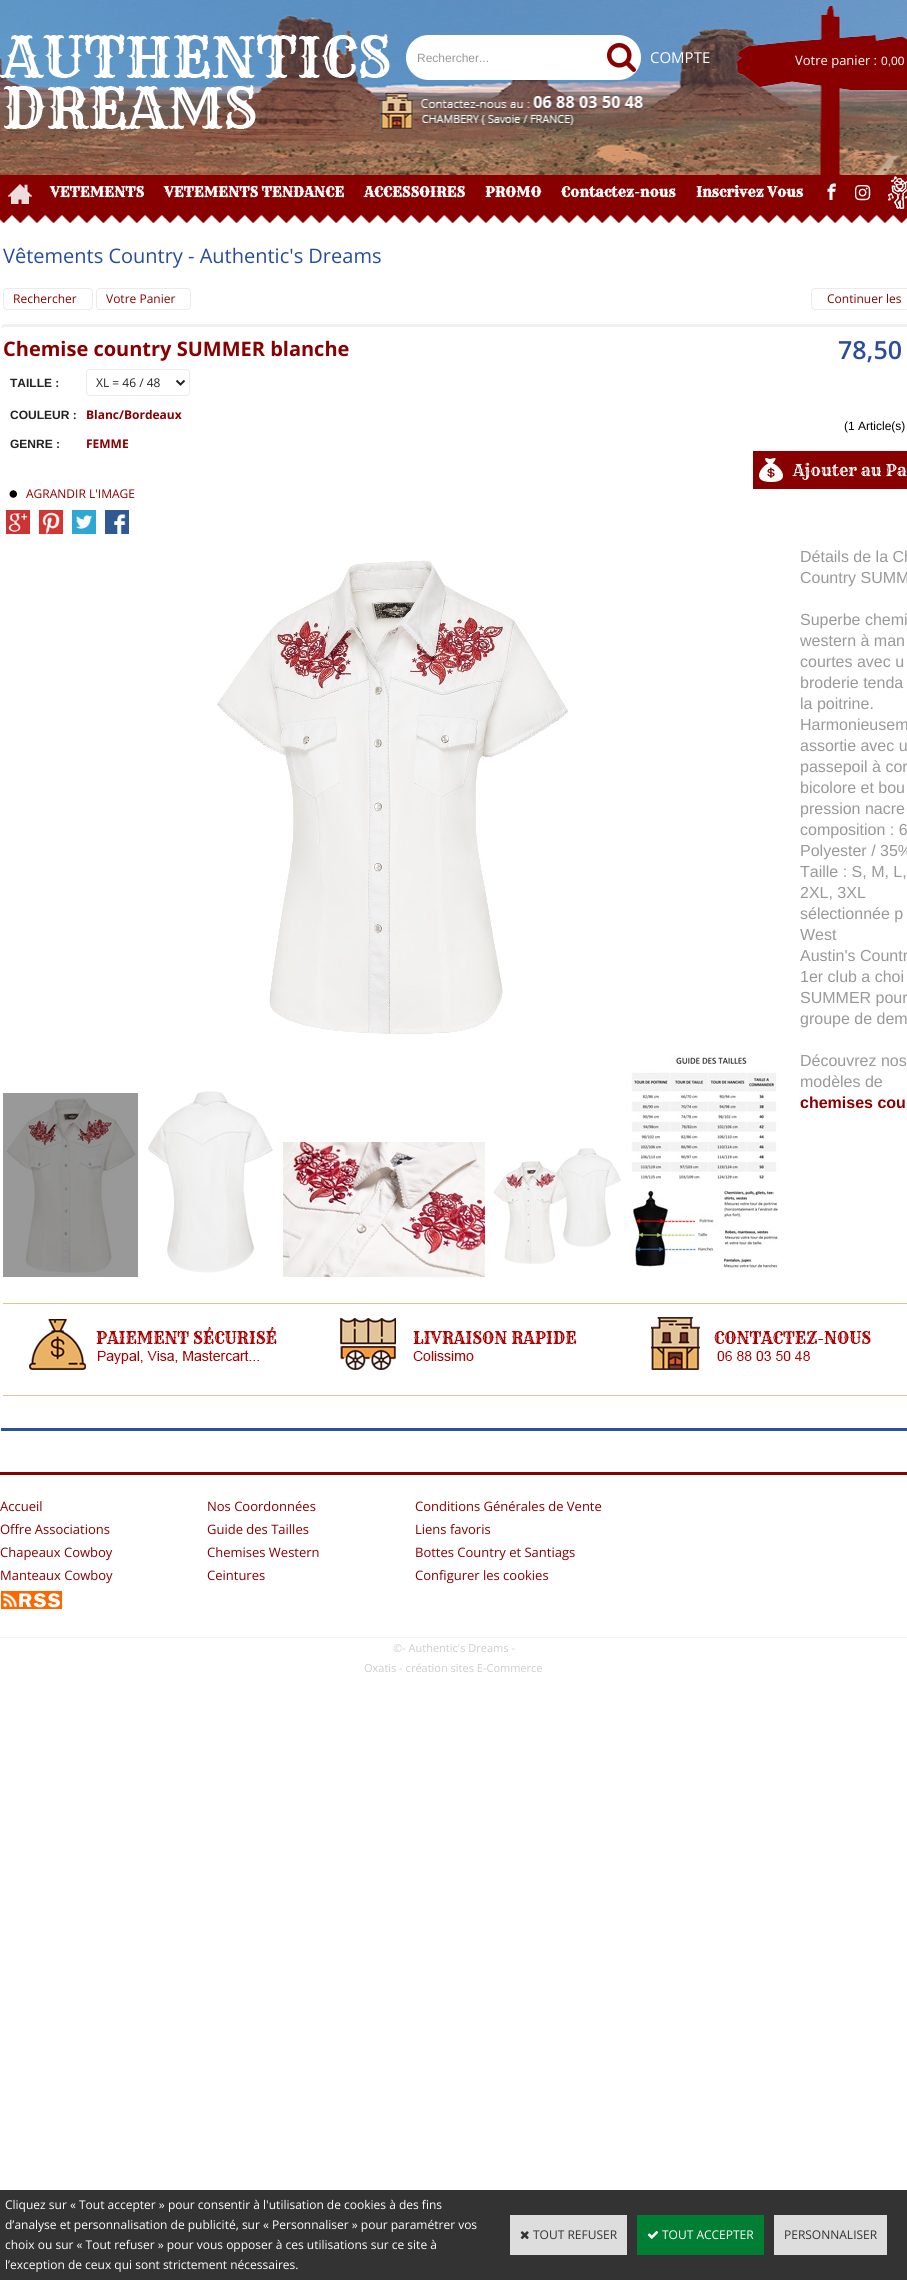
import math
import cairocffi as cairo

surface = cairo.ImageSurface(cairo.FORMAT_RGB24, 907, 2280)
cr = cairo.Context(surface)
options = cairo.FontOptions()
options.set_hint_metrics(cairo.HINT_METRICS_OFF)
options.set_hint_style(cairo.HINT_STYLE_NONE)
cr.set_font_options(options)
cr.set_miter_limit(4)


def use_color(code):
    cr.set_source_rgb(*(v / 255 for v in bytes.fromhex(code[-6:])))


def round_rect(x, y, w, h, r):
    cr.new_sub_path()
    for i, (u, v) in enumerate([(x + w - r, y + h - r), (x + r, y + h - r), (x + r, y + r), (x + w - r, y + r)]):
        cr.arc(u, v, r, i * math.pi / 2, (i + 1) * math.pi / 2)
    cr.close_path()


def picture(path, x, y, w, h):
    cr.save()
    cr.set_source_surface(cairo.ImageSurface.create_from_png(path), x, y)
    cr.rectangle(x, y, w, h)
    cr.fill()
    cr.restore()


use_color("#ffffff")
cr.paint()
picture("img1.png", 0, 0, 907, 223)
use_color("#ffffff")
round_rect(406, 35, 235, 45, 22.5)
cr.fill()
cr.select_font_face("Liberation Sans")
cr.set_font_size(12)
use_color("#999999")
cr.move_to(417, 62)
cr.show_text("Rechercher...")
picture("img2.png", 607, 43, 29, 29)
cr.select_font_face("Open Sans")
cr.set_font_size(15)
use_color("#ffffff")
cr.move_to(650, 63)
cr.show_text("COMPTE")
picture("img3.png", 8, 184, 24, 20)
picture("img4.png", 0, 34, 390, 96)
cr.set_font_size(13)
cr.move_to(795, 65)
cr.show_text("Votre panier :")
cr.select_font_face("Liberation Sans")
cr.set_font_size(12)
cr.move_to(881, 65)
cr.show_text("0,00")
cr.select_font_face("Rye", cairo.FONT_SLANT_NORMAL, cairo.FONT_WEIGHT_BOLD)
cr.set_font_size(14)
cr.move_to(50, 197)
cr.show_text("VETEMENTS")
cr.move_to(164, 197)
cr.show_text("VETEMENTS TENDANCE")
cr.move_to(364, 197)
cr.show_text("ACCESSOIRES")
cr.move_to(485, 197)
cr.show_text("PROMO")
cr.move_to(561, 197)
cr.show_text("Contactez-nous")
cr.move_to(696, 197)
cr.show_text("Inscrivez Vous")
picture("img5.png", 827, 183, 9, 17)
picture("img6.png", 855, 185, 16, 16)
picture("img7.png", 888, 176, 19, 33)
cr.select_font_face("Open Sans")
cr.set_font_size(20)
use_color("#264d9b")
cr.move_to(3, 263)
cr.show_text("Vêtements Country - Authentic's Dreams")
round_rect(3.5, 288.5, 89, 21, 3.5)
use_color("#ebebeb")
cr.set_line_width(1)
cr.stroke()
cr.set_font_size(12)
use_color("#890000")
cr.move_to(13, 303)
cr.show_text("Rechercher")
round_rect(96.5, 288.5, 94, 21, 3.5)
use_color("#ebebeb")
cr.stroke()
use_color("#890000")
cr.move_to(106, 303)
cr.show_text("Votre Panier")
round_rect(811.5, 288.5, 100, 21, 3.5)
use_color("#ebebeb")
cr.stroke()
use_color("#890000")
cr.move_to(827, 303)
cr.show_text("Continuer les")
use_color("#f1f1f1")
cr.new_path()
cr.move_to(5, 324)
cr.curve_to(3, 324, 1, 326, 1, 328)
cr.line_to(5, 327)
cr.line_to(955, 327)
cr.curve_to(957, 327, 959, 327, 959, 328)
cr.curve_to(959, 326, 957, 324, 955, 324)
cr.close_path()
cr.fill()
use_color("#2a519c")
cr.rectangle(1, 1428, 906, 3)
cr.fill()
cr.select_font_face("Open Sans", cairo.FONT_SLANT_NORMAL, cairo.FONT_WEIGHT_BOLD)
cr.set_font_size(20)
use_color("#890000")
cr.move_to(3, 356)
cr.show_text("Chemise country SUMMER blanche")
cr.select_font_face("Liberation Sans", cairo.FONT_SLANT_NORMAL, cairo.FONT_WEIGHT_BOLD)
cr.set_font_size(12)
use_color("#222222")
cr.move_to(10, 387)
cr.show_text("TAILLE :")
round_rect(86.5, 369.5, 103, 26, 3.5)
use_color("#ebebeb")
cr.stroke()
cr.new_path()
cr.move_to(176.5, 380.5)
cr.line_to(180.5, 384.5)
cr.line_to(184.5, 380.5)
use_color("#222222")
cr.set_line_width(2)
cr.stroke()
cr.select_font_face("Open Sans")
cr.move_to(96, 387)
cr.show_text("XL = 46 / 48")
cr.select_font_face("Liberation Sans", cairo.FONT_SLANT_NORMAL, cairo.FONT_WEIGHT_BOLD)
cr.move_to(10, 419)
cr.show_text("COULEUR :")
cr.select_font_face("Open Sans", cairo.FONT_SLANT_NORMAL, cairo.FONT_WEIGHT_BOLD)
use_color("#890000")
cr.move_to(86, 419)
cr.show_text("Blanc/Bordeaux")
cr.select_font_face("Liberation Sans", cairo.FONT_SLANT_NORMAL, cairo.FONT_WEIGHT_BOLD)
use_color("#222222")
cr.move_to(10, 448)
cr.show_text("GENRE :")
cr.select_font_face("Open Sans", cairo.FONT_SLANT_NORMAL, cairo.FONT_WEIGHT_BOLD)
use_color("#890000")
cr.move_to(86, 448)
cr.show_text("FEMME")
picture("img8.png", 9, 490, 8, 8)
cr.select_font_face("Open Sans")
cr.move_to(26, 498)
cr.show_text("AGRANDIR L'IMAGE")
picture("img9.png", 6, 510, 24, 24)
picture("img10.png", 39, 510, 24, 24)
picture("img11.png", 72, 510, 24, 24)
picture("img12.png", 105, 510, 24, 24)
cr.select_font_face("Open Sans SemiBold")
cr.set_font_size(25)
use_color("#2c4d9b")
cr.move_to(838, 359)
cr.show_text("78,50")
cr.select_font_face("Liberation Sans")
cr.set_font_size(12)
use_color("#000000")
cr.move_to(844, 430)
cr.show_text("(1 Article(s)")
use_color("#890000")
cr.rectangle(753, 451, 154, 38)
cr.fill()
picture("img13.png", 759, 458, 24, 24)
cr.select_font_face("Rye")
cr.set_font_size(16)
use_color("#ffffff")
cr.move_to(793, 476)
cr.show_text("Ajouter au Pa")
cr.select_font_face("Liberation Sans")
use_color("#999999")
cr.move_to(800, 562)
cr.show_text("Détails de la Ch")
picture("img14.png", 217, 560, 351, 474)
picture("img15.png", 3, 1093, 135, 184)
picture("img16.png", 148, 1091, 125, 182)
picture("img17.png", 283, 1142, 202, 135)
picture("img18.png", 493, 1148, 128, 116)
picture("img19.png", 630, 1053, 149, 215)
cr.move_to(800, 583)
cr.show_text("Country SUMM")
cr.move_to(800, 625)
cr.show_text("Superbe chemi")
cr.move_to(800, 646)
cr.show_text("western à man")
cr.move_to(800, 667)
cr.show_text("courtes avec u")
cr.move_to(800, 688)
cr.show_text("broderie tenda")
cr.move_to(800, 709)
cr.show_text("la poitrine.")
cr.move_to(800, 730)
cr.show_text("Harmonieusem")
cr.move_to(800, 751)
cr.show_text("assortie avec u")
cr.move_to(800, 772)
cr.show_text("passepoil à cor")
cr.move_to(800, 793)
cr.show_text("bicolore et bou")
cr.move_to(800, 814)
cr.show_text("pression nacre")
cr.move_to(800, 835)
cr.show_text("composition : 6")
cr.move_to(800, 856)
cr.show_text("Polyester / 35%")
cr.move_to(800, 877)
cr.show_text("Taille : S, M, L,")
cr.move_to(800, 898)
cr.show_text("2XL, 3XL")
cr.move_to(800, 919)
cr.show_text("sélectionnée p")
cr.move_to(800, 940)
cr.show_text("West")
cr.move_to(800, 961)
cr.show_text("Austin's Countr")
cr.move_to(800, 982)
cr.show_text("1er club a choi")
cr.move_to(800, 1003)
cr.show_text("SUMMER pour")
cr.move_to(800, 1024)
cr.show_text("groupe de dem")
cr.move_to(800, 1066)
cr.show_text("Découvrez nos")
cr.move_to(800, 1087)
cr.show_text("modèles de")
cr.select_font_face("Liberation Sans", cairo.FONT_SLANT_NORMAL, cairo.FONT_WEIGHT_BOLD)
use_color("#890000")
cr.move_to(800, 1108)
cr.show_text("chemises cou")
use_color("#e3c498")
cr.rectangle(3, 1303, 904, 1)
cr.fill()
cr.rectangle(3, 1395, 904, 1)
cr.fill()
picture("img20.png", 29, 1319, 248, 51)
picture("img21.png", 340, 1318, 237, 52)
picture("img22.png", 651, 1317, 220, 53)
use_color("#890000")
cr.rectangle(0, 1472, 907, 3)
cr.fill()
cr.select_font_face("Open Sans")
cr.set_font_size(13)
cr.move_to(0, 1511)
cr.show_text("Accueil")
cr.move_to(207, 1511)
cr.show_text("Nos Coordonnées")
cr.move_to(415, 1511)
cr.show_text("Conditions Générales de Vente")
cr.move_to(0, 1534)
cr.show_text("Offre Associations")
cr.move_to(207, 1534)
cr.show_text("Guide des Tailles")
cr.move_to(415, 1534)
cr.show_text("Liens favoris")
cr.move_to(0, 1557)
cr.show_text("Chapeaux Cowboy")
cr.move_to(207, 1557)
cr.show_text("Chemises Western")
cr.move_to(415, 1557)
cr.show_text("Bottes Country et Santiags")
cr.move_to(0, 1580)
cr.show_text("Manteaux Cowboy")
cr.move_to(207, 1580)
cr.show_text("Ceintures")
cr.move_to(415, 1580)
cr.show_text("Configurer les cookies")
picture("img23.png", 1, 1591, 61, 18)
use_color("#f1f1f1")
cr.rectangle(0, 1637, 907, 1)
cr.fill()
cr.set_font_size(11)
use_color("#cccccc")
cr.move_to(393, 1652)
cr.show_text("©- Authentic's Dreams -")
cr.move_to(364, 1672)
cr.show_text("Oxatis - création sites E-Commerce")
use_color("#333333")
cr.rectangle(0, 2190, 907, 90)
cr.fill()
cr.set_font_size(12)
use_color("#ffffff")
cr.move_to(5, 2209)
cr.show_text("Cliquez sur « Tout accepter » pour consentir à l'utilisation de cookies à des fins")
cr.move_to(5, 2229)
cr.show_text("d’analyse et personnalisation de publicité, sur « Personnaliser » pour paramétrer vos")
cr.move_to(5, 2249)
cr.show_text("choix ou sur « Tout refuser » pour vous opposer à ces utilisations sur ce site à")
cr.move_to(5, 2269)
cr.show_text("l’exception de ceux qui sont strictement nécessaires.")
use_color("#dddddd")
cr.rectangle(510, 2215, 117, 40)
cr.fill()
picture("img24.png", 520, 2231, 9, 9)
use_color("#333333")
cr.move_to(533, 2239)
cr.show_text("TOUT REFUSER")
use_color("#007e33")
cr.rectangle(637, 2215, 127, 40)
cr.fill()
picture("img25.png", 647, 2231, 12, 8)
use_color("#ffffff")
cr.move_to(662, 2239)
cr.show_text("TOUT ACCEPTER")
use_color("#dddddd")
cr.rectangle(774, 2215, 113, 40)
cr.fill()
use_color("#333333")
cr.move_to(784, 2239)
cr.show_text("PERSONNALISER")
surface.write_to_png("result.png")
